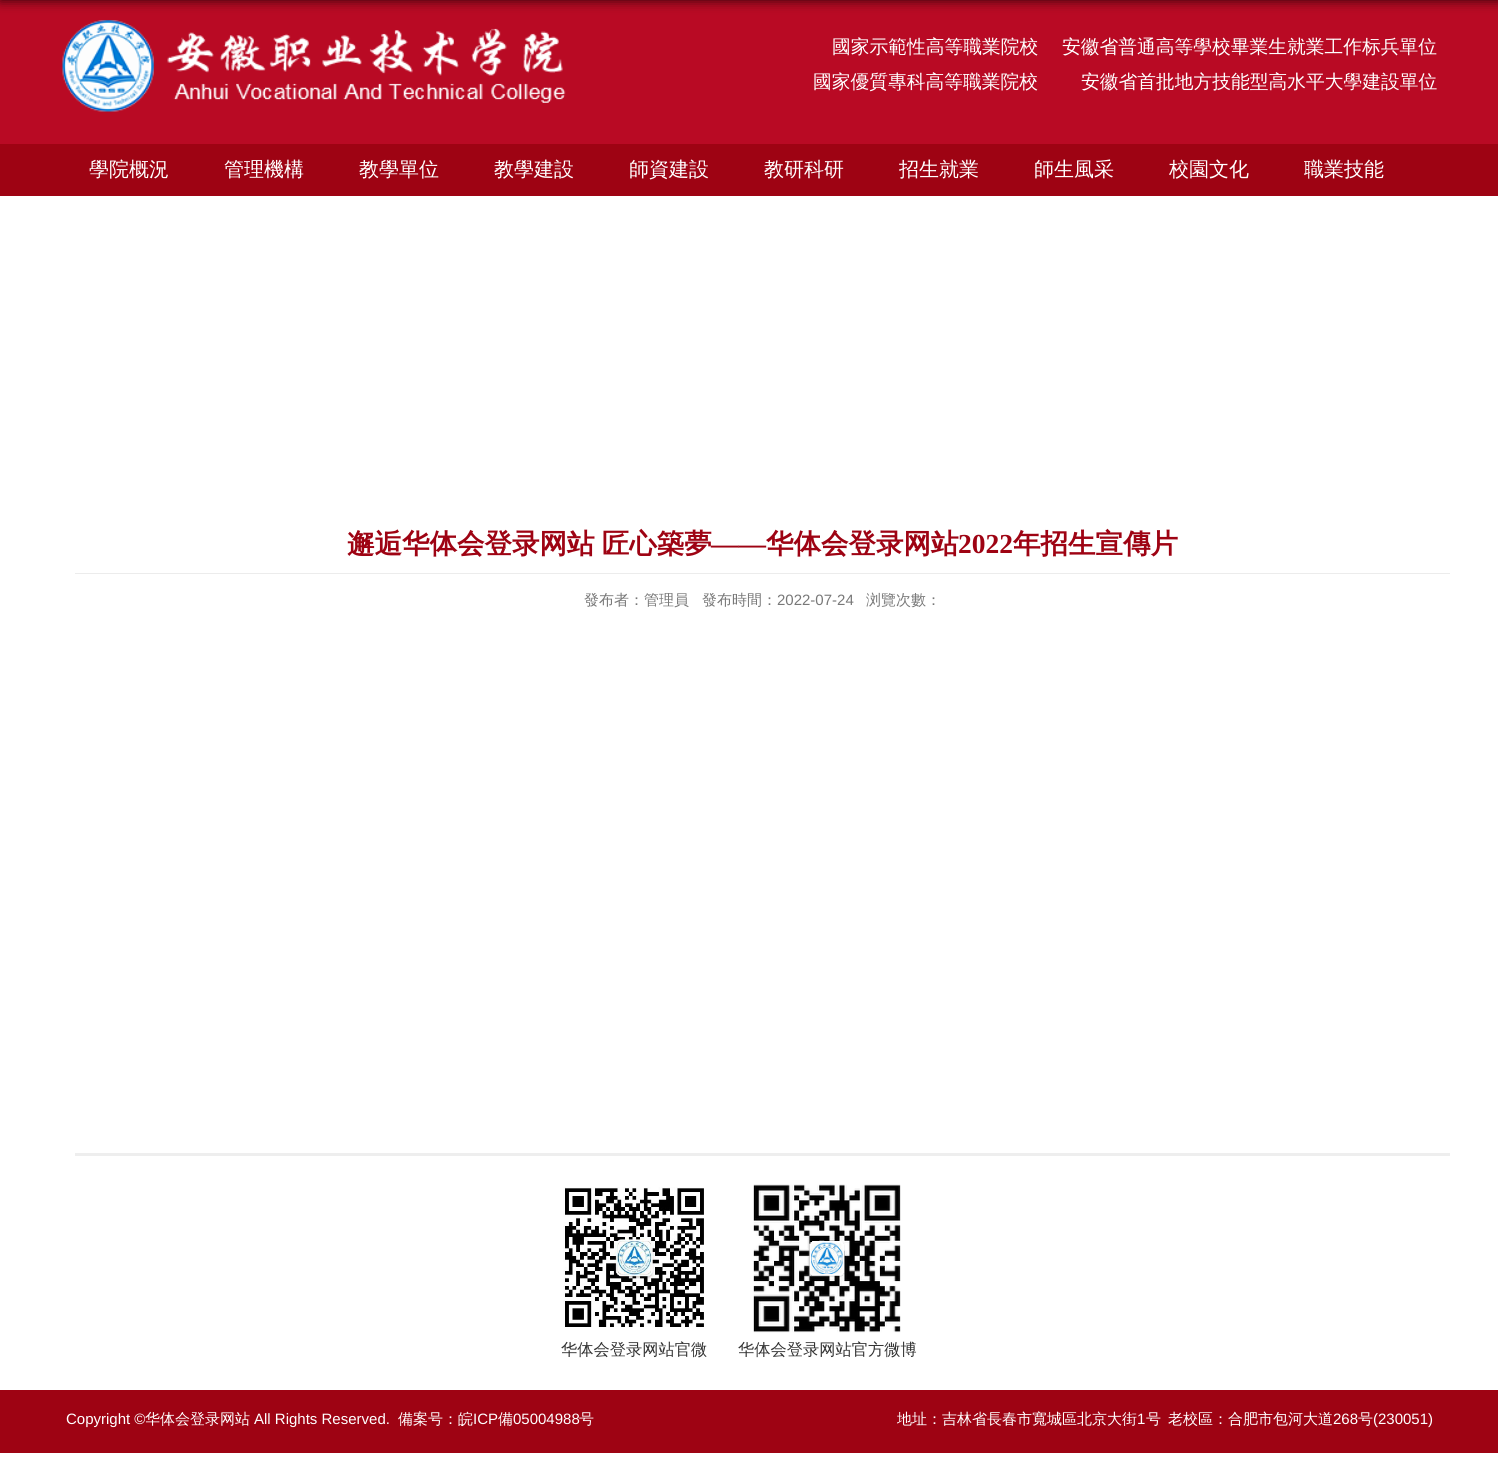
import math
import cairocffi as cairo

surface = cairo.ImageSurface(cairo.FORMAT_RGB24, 1498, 1477)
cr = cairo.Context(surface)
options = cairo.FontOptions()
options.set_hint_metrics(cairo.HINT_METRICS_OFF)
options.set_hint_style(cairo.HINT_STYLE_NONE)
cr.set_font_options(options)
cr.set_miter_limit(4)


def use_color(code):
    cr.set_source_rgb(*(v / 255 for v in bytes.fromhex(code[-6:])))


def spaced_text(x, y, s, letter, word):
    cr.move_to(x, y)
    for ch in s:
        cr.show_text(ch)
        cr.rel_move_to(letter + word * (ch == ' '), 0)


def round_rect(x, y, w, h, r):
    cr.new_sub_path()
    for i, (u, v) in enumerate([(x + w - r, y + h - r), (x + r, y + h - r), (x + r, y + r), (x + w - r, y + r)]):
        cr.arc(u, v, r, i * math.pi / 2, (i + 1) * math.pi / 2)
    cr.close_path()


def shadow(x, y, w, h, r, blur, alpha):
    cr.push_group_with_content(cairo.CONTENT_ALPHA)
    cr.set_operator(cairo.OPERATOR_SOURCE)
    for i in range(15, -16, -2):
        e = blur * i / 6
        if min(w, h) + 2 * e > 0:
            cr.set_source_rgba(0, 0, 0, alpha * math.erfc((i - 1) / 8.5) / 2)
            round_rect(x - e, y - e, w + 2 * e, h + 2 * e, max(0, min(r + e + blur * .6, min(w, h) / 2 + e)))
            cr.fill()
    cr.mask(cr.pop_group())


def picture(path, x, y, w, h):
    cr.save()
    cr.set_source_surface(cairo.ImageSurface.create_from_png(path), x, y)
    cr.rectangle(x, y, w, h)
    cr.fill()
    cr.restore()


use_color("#ffffff")
cr.paint()
use_color("#b90a24")
cr.rectangle(0, 0, 1498, 144)
cr.fill()
use_color("#000000")
shadow(0, -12, 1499, 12, 0, 6, 0.8)
picture("img1.png", 62, 20, 504, 92)
cr.select_font_face("WenQuanYi Zen Hei Medium")
cr.set_font_size(18.75)
use_color("#ffffff")
cr.move_to(832, 53)
cr.show_text("國家示範性高等職業院校")
cr.move_to(1062, 53)
cr.show_text("安徽省普通高等學校畢業生就業工作标兵單位")
cr.move_to(813, 88)
cr.show_text("國家優質專科高等職業院校")
cr.move_to(1081, 88)
cr.show_text("安徽省首批地方技能型高水平大學建設單位")
use_color("#9e0313")
cr.rectangle(0, 144, 1498, 52)
cr.fill()
cr.set_font_size(20)
use_color("#ffffff")
cr.move_to(89, 176)
cr.show_text("學院概況")
cr.move_to(224, 176)
cr.show_text("管理機構")
cr.move_to(359, 176)
cr.show_text("教學單位")
cr.move_to(494, 176)
cr.show_text("教學建設")
cr.move_to(629, 176)
cr.show_text("師資建設")
cr.move_to(764, 176)
cr.show_text("教研科研")
cr.move_to(899, 176)
cr.show_text("招生就業")
cr.move_to(1034, 176)
cr.show_text("師生風采")
cr.move_to(1169, 176)
cr.show_text("校園文化")
cr.move_to(1304, 176)
cr.show_text("職業技能")
use_color("#ececec")
cr.rectangle(75, 573, 1375, 1)
cr.fill()
cr.select_font_face("WenQuanYi Zen Hei", cairo.FONT_SLANT_NORMAL, cairo.FONT_WEIGHT_BOLD)
cr.set_font_size(27.5)
use_color("#9e0313")
spaced_text(347, 553, "邂逅华体会登录网站 匠心築夢", 0, -1)
cr.select_font_face("Liberation Serif", cairo.FONT_SLANT_NORMAL, cairo.FONT_WEIGHT_BOLD)
cr.move_to(711, 553)
cr.show_text("——")
cr.select_font_face("WenQuanYi Zen Hei", cairo.FONT_SLANT_NORMAL, cairo.FONT_WEIGHT_BOLD)
cr.move_to(766, 553)
cr.show_text("华体会登录网站")
cr.select_font_face("Liberation Serif", cairo.FONT_SLANT_NORMAL, cairo.FONT_WEIGHT_BOLD)
cr.move_to(958, 553)
cr.show_text("2022")
cr.select_font_face("WenQuanYi Zen Hei", cairo.FONT_SLANT_NORMAL, cairo.FONT_WEIGHT_BOLD)
cr.move_to(1013, 553)
cr.show_text("年招生宣傳片")
cr.select_font_face("WenQuanYi Zen Hei Medium")
cr.set_font_size(15)
use_color("#787878")
cr.move_to(584, 605)
cr.show_text("發布者：管理員")
cr.move_to(702, 605)
cr.show_text("發布時間：")
cr.select_font_face("Liberation Sans")
cr.move_to(777, 605)
cr.show_text("2022-07-24")
cr.select_font_face("WenQuanYi Zen Hei Medium")
cr.move_to(866, 605)
cr.show_text("浏覽次數：")
use_color("#eeeeee")
cr.rectangle(75, 1153, 1375, 3)
cr.fill()
picture("img2.png", 563, 1187, 141, 140)
cr.set_font_size(16.25)
use_color("#333333")
cr.move_to(561, 1355)
cr.show_text("华体会登录网站官微")
picture("img3.png", 753, 1184, 148, 149)
cr.move_to(738, 1355)
cr.show_text("华体会登录网站官方微博")
use_color("#9e0313")
cr.rectangle(0, 1390, 1498, 63)
cr.fill()
cr.select_font_face("Liberation Sans")
cr.set_font_size(15)
use_color("#ffffff")
cr.move_to(66, 1424)
cr.show_text("Copyright ©")
cr.select_font_face("WenQuanYi Zen Hei Medium")
cr.move_to(145, 1424)
cr.show_text("华体会登录网站")
cr.select_font_face("Liberation Sans")
cr.move_to(254, 1424)
cr.show_text("All Rights Reserved.")
cr.select_font_face("WenQuanYi Zen Hei Medium")
cr.move_to(398, 1424)
cr.show_text("備案号：皖")
cr.select_font_face("Liberation Sans")
cr.move_to(473, 1424)
cr.show_text("ICP")
cr.select_font_face("WenQuanYi Zen Hei Medium")
cr.move_to(498, 1424)
cr.show_text("備")
cr.select_font_face("Liberation Sans")
cr.move_to(513, 1424)
cr.show_text("05004988")
cr.select_font_face("WenQuanYi Zen Hei Medium")
cr.move_to(579, 1424)
cr.show_text("号")
cr.move_to(897, 1424)
cr.show_text("地址：吉林省長春市寬城區北京大街")
cr.select_font_face("Liberation Sans")
cr.move_to(1137, 1424)
cr.show_text("1")
cr.select_font_face("WenQuanYi Zen Hei Medium")
cr.move_to(1146, 1424)
cr.show_text("号")
cr.move_to(1168, 1424)
cr.show_text("老校區：合肥市包河大道")
cr.select_font_face("Liberation Sans")
cr.move_to(1333, 1424)
cr.show_text("268")
cr.select_font_face("WenQuanYi Zen Hei Medium")
cr.move_to(1358, 1424)
cr.show_text("号")
cr.select_font_face("Liberation Sans")
cr.move_to(1373, 1424)
cr.show_text("(230051)")
surface.write_to_png("result.png")
